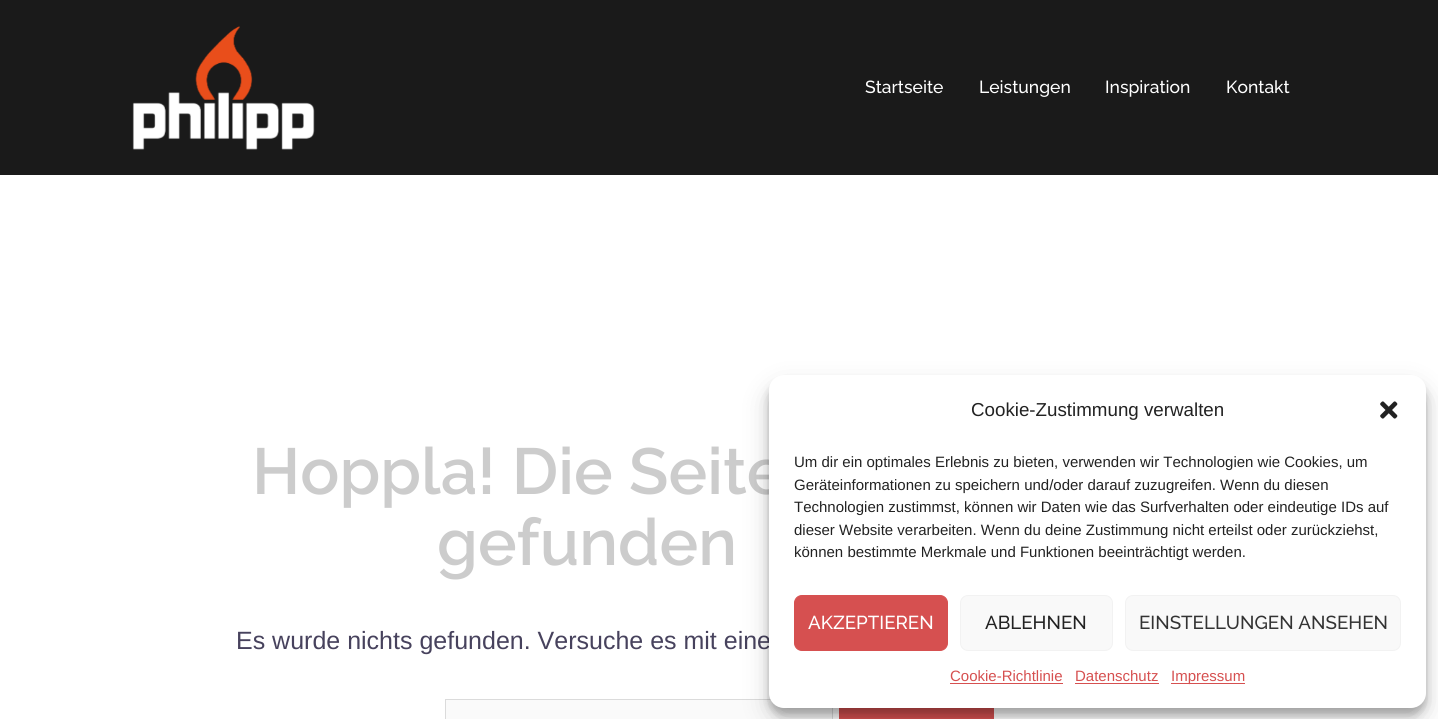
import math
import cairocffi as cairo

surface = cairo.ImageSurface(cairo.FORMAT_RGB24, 1438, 719)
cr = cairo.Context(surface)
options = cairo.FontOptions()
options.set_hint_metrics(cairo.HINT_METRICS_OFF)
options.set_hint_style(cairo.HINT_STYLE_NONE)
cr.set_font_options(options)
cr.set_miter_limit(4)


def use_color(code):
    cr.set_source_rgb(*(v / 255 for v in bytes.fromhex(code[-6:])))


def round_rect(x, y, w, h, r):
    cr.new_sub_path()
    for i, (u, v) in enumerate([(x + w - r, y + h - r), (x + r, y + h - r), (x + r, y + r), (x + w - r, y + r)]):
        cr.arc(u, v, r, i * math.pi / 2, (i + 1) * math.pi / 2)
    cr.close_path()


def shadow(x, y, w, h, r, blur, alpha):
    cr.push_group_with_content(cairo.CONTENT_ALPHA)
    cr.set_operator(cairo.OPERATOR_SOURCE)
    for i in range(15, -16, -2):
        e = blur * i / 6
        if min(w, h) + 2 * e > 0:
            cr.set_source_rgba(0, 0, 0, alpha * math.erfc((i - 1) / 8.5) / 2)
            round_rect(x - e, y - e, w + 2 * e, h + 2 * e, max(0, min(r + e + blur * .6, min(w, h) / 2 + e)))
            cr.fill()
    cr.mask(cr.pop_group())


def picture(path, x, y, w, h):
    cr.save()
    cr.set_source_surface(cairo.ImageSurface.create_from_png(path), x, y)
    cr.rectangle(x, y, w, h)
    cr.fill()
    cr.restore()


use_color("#ffffff")
cr.paint()
use_color("#1a1a1a")
cr.rectangle(0, 0, 1438, 175)
cr.fill()
picture("img1.png", 132, 26, 183, 124)
cr.select_font_face("Raleway Medium")
cr.set_font_size(17.5)
use_color("#ffffff")
cr.move_to(865, 93)
cr.show_text("Startseite")
cr.move_to(979, 93)
cr.show_text("Leistungen")
cr.move_to(1105, 93)
cr.show_text("Inspiration")
cr.move_to(1226, 93)
cr.show_text("Kontakt")
cr.select_font_face("Raleway SemiBold")
cr.set_font_size(65)
use_color("#cccccc")
cr.move_to(252, 494)
cr.show_text("Hoppla! Die Seite")
cr.move_to(437, 565)
cr.show_text("gefunden")
cr.select_font_face("Liberation Sans")
cr.set_font_size(25)
use_color("#47425d")
cr.move_to(236, 649)
cr.show_text("Es wurde nichts gefunden. Versuche es mit eine")
use_color("#fafafa")
cr.rectangle(445.5, 699.5, 387, 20)
cr.fill_preserve()
use_color("#dbdbdb")
cr.set_line_width(1)
cr.stroke()
use_color("#d65050")
cr.rectangle(840, 708, 153, 11)
cr.fill()
cr.rectangle(839.5, 703.5, 154, 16)
cr.stroke()
use_color("#000000")
shadow(769, 383, 657, 332, 15, 4, 0.23)
shadow(769, 388, 657, 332, 15, 12.5, 0.19)
use_color("#ffffff")
round_rect(769, 375, 657, 333, 15)
cr.fill()
cr.set_font_size(18.75)
use_color("#222222")
cr.move_to(971, 416)
cr.show_text("Cookie-Zustimmung verwalten")
picture("img2.png", 1380, 401, 18, 18)
cr.set_font_size(15)
cr.move_to(794, 467)
cr.show_text("Um dir ein optimales Erlebnis zu bieten, verwenden wir Technologien wie Cookies, um")
cr.move_to(794, 490)
cr.show_text("Geräteinformationen zu speichern und/oder darauf zuzugreifen. Wenn du diesen")
cr.move_to(794, 512)
cr.show_text("Technologien zustimmst, können wir Daten wie das Surfverhalten oder eindeutige IDs auf")
cr.move_to(794, 535)
cr.show_text("dieser Website verarbeiten. Wenn du deine Zustimmung nicht erteilst oder zurückziehst,")
cr.move_to(794, 557)
cr.show_text("können bestimmte Merkmale und Funktionen beeinträchtigt werden.")
use_color("#d65050")
round_rect(794.5, 595.5, 153, 55, 7.5)
cr.fill_preserve()
cr.stroke()
cr.select_font_face("Raleway Medium")
cr.set_font_size(18.75)
use_color("#ffffff")
cr.move_to(808, 629)
cr.show_text("AKZEPTIEREN")
use_color("#f9f9f9")
round_rect(960.5, 595.5, 152, 55, 7.5)
cr.fill_preserve()
use_color("#f2f2f2")
cr.stroke()
use_color("#222222")
cr.move_to(985, 629)
cr.show_text("ABLEHNEN")
use_color("#f9f9f9")
round_rect(1125.5, 595.5, 275, 55, 7.5)
cr.fill_preserve()
use_color("#f2f2f2")
cr.stroke()
use_color("#333333")
cr.move_to(1139, 629)
cr.show_text("EINSTELLUNGEN ANSEHEN")
cr.select_font_face("Liberation Sans")
cr.set_font_size(15)
use_color("#d65050")
cr.move_to(950, 681)
cr.show_text("Cookie-Richtlinie")
cr.rectangle(950, 683, 113, 1)
cr.fill()
cr.move_to(1075, 681)
cr.show_text("Datenschutz")
cr.rectangle(1075, 683, 84, 1)
cr.fill()
cr.rectangle(1171, 683, 74, 1)
cr.fill()
cr.move_to(1171, 681)
cr.show_text("Impressum")
surface.write_to_png("result.png")
